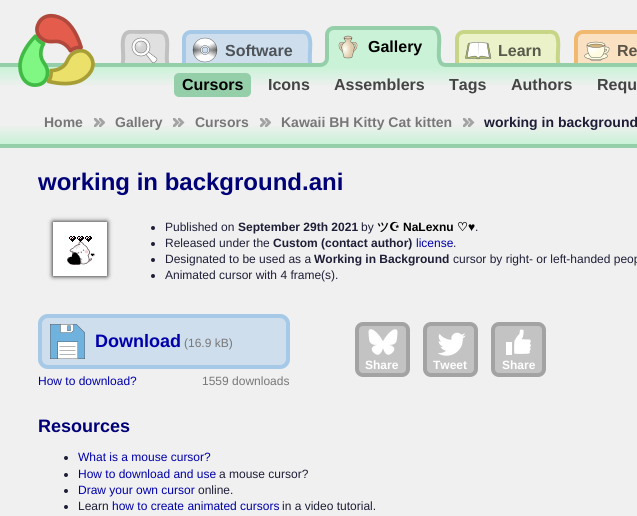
import math
import cairocffi as cairo

surface = cairo.ImageSurface(cairo.FORMAT_RGB24, 637, 516)
cr = cairo.Context(surface)
options = cairo.FontOptions()
options.set_hint_metrics(cairo.HINT_METRICS_OFF)
options.set_hint_style(cairo.HINT_STYLE_NONE)
cr.set_font_options(options)
cr.set_miter_limit(4)


def use_color(code):
    cr.set_source_rgb(*(v / 255 for v in bytes.fromhex(code[-6:])))


def round_rect(x, y, w, h, r):
    cr.new_sub_path()
    for i, (u, v) in enumerate([(x + w - r, y + h - r), (x + r, y + h - r), (x + r, y + r), (x + w - r, y + r)]):
        cr.arc(u, v, r, i * math.pi / 2, (i + 1) * math.pi / 2)
    cr.close_path()


def shadow(x, y, w, h, r, blur, alpha):
    cr.push_group_with_content(cairo.CONTENT_ALPHA)
    cr.set_operator(cairo.OPERATOR_SOURCE)
    for i in range(15, -16, -2):
        e = blur * i / 6
        if min(w, h) + 2 * e > 0:
            cr.set_source_rgba(0, 0, 0, alpha * math.erfc((i - 1) / 8.5) / 2)
            round_rect(x - e, y - e, w + 2 * e, h + 2 * e, max(0, min(r + e + blur * .6, min(w, h) / 2 + e)))
            cr.fill()
    cr.mask(cr.pop_group())


def picture(path, x, y, w, h):
    cr.save()
    cr.set_source_surface(cairo.ImageSurface.create_from_png(path), x, y)
    cr.rectangle(x, y, w, h)
    cr.fill()
    cr.restore()


use_color("#f0f0f0")
cr.paint()
use_color("#e0e0e0")
cr.new_path()
cr.move_to(116, 69)
cr.curve_to(131, 69, 116, 37, 127, 33)
cr.curve_to(131, 31, 136, 32, 140, 32)
cr.curve_to(145, 32, 159, 31, 163, 33)
cr.curve_to(174, 37, 159, 69, 174, 69)
cr.line_to(174, 72)
cr.line_to(116, 72)
cr.close_path()
cr.fill()
cr.save()
cr.rectangle(116, 30, 58, 42)
cr.clip()
cr.new_path()
cr.move_to(116, 69)
cr.curve_to(131, 69, 116, 37.5, 127.5, 32.5)
cr.curve_to(131, 31, 136, 32, 140, 32)
cr.curve_to(144.5, 32, 159, 31, 162.5, 32.5)
cr.curve_to(174, 37.5, 159, 69, 174, 69)
use_color("#c0c0c0")
cr.set_line_width(4)
cr.stroke()
cr.restore()
use_color("#cedeed")
cr.new_path()
cr.move_to(267, 32)
cr.line_to(291, 32)
cr.curve_to(295, 32, 301, 31, 306, 33)
cr.curve_to(317, 37, 302, 69, 317, 69)
cr.line_to(317, 72)
cr.line_to(267, 72)
cr.close_path()
cr.fill()
cr.save()
cr.rectangle(267, 30, 50, 42)
cr.clip()
cr.new_path()
cr.move_to(267, 32)
cr.line_to(291, 32)
cr.curve_to(295.5, 32, 301.5, 31, 305.5, 32.5)
cr.curve_to(317, 37.5, 302, 69, 317, 69)
use_color("#a5c9e7")
cr.set_line_width(4)
cr.stroke()
cr.restore()
cr.save()
cr.rectangle(177, 30, 124, 42)
cr.clip()
cr.new_path()
cr.move_to(177, 72)
cr.line_to(177, 69)
cr.curve_to(181, 69, 184, 66, 184, 62)
cr.line_to(184, 39)
cr.curve_to(184, 35, 187, 32, 191, 32)
cr.line_to(377, 32)
cr.line_to(377, 72)
cr.close_path()
cr.fill()
cr.new_path()
cr.move_to(177, 69)
cr.curve_to(181, 69, 184, 66, 184, 62)
cr.line_to(184, 39)
cr.curve_to(184, 35, 187, 32, 191, 32)
cr.line_to(377, 32)
use_color("#a5c9e7")
cr.set_line_width(4)
cr.stroke()
cr.restore()
use_color("#ebf2c9")
cr.new_path()
cr.move_to(515, 32)
cr.line_to(539, 32)
cr.curve_to(543, 32, 549, 31, 554, 33)
cr.curve_to(565, 37, 550, 69, 565, 69)
cr.line_to(565, 72)
cr.line_to(515, 72)
cr.close_path()
cr.fill()
cr.save()
cr.rectangle(515, 30, 50, 42)
cr.clip()
cr.new_path()
cr.move_to(515, 32)
cr.line_to(539, 32)
cr.curve_to(543.5, 32, 549.5, 31, 553.5, 32.5)
cr.curve_to(565, 37.5, 550, 69, 565, 69)
use_color("#c6d586")
cr.set_line_width(4)
cr.stroke()
cr.restore()
cr.save()
cr.rectangle(450, 30, 99, 42)
cr.clip()
cr.new_path()
cr.move_to(450, 72)
cr.line_to(450, 69)
cr.curve_to(454, 69, 457, 66, 457, 62)
cr.line_to(457, 39)
cr.curve_to(457, 35, 460, 32, 464, 32)
cr.line_to(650, 32)
cr.line_to(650, 72)
cr.close_path()
cr.fill()
cr.new_path()
cr.move_to(450, 69)
cr.curve_to(454, 69, 457, 66, 457, 62)
cr.line_to(457, 39)
cr.curve_to(457, 35, 460, 32, 464, 32)
cr.line_to(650, 32)
use_color("#c6d586")
cr.set_line_width(4)
cr.stroke()
cr.restore()
use_color("#f9e1c2")
cr.new_path()
cr.move_to(569, 72)
cr.line_to(569, 69)
cr.curve_to(573, 69, 576, 66, 576, 62)
cr.line_to(576, 39)
cr.curve_to(576, 35, 579, 32, 583, 32)
cr.line_to(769, 32)
cr.line_to(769, 72)
cr.close_path()
cr.fill()
cr.new_path()
cr.move_to(569, 69)
cr.curve_to(573, 69, 576, 66, 576, 62)
cr.line_to(576, 39)
cr.curve_to(576, 35, 579, 32, 583, 32)
cr.line_to(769, 32)
use_color("#f0b96f")
cr.set_line_width(4)
cr.stroke()
gradient = cairo.LinearGradient(463, 63, 463, 113)
gradient.add_color_stop_rgba(0, 0.584, 0.812, 0.667, 1)
gradient.add_color_stop_rgba(0.08, 0.584, 0.812, 0.667, 1)
gradient.add_color_stop_rgba(0.08, 0.788, 0.949, 0.843, 1)
gradient.add_color_stop_rgba(0.48, 0.941, 0.941, 0.941, 1)
cr.set_source(gradient)
cr.rectangle(0, 63, 637, 23)
cr.fill()
picture("img1.png", 18, 13, 77, 74)
picture("img2.png", 131, 37, 27, 26)
use_color("#c9f2d7")
cr.new_path()
cr.move_to(396, 28)
cr.line_to(420, 28)
cr.curve_to(424, 28, 430, 27, 435, 29)
cr.curve_to(446, 33, 431, 65, 446, 65)
cr.line_to(446, 68)
cr.line_to(396, 68)
cr.close_path()
cr.fill()
cr.save()
cr.rectangle(396, 26, 50, 42)
cr.clip()
cr.new_path()
cr.move_to(396, 28)
cr.line_to(420, 28)
cr.curve_to(424.5, 28, 430.5, 27, 434.5, 28.5)
cr.curve_to(446, 33.5, 431, 65, 446, 65)
use_color("#95cfaa")
cr.stroke()
cr.restore()
cr.save()
cr.rectangle(320, 26, 110, 42)
cr.clip()
cr.new_path()
cr.move_to(320, 68)
cr.line_to(320, 65)
cr.curve_to(324, 65, 327, 62, 327, 58)
cr.line_to(327, 35)
cr.curve_to(327, 31, 330, 28, 334, 28)
cr.line_to(520, 28)
cr.line_to(520, 68)
cr.close_path()
cr.fill()
cr.new_path()
cr.move_to(320, 65)
cr.curve_to(324, 65, 327, 62, 327, 58)
cr.line_to(327, 35)
cr.curve_to(327, 31, 330, 28, 334, 28)
cr.line_to(520, 28)
use_color("#95cfaa")
cr.stroke()
cr.restore()
picture("img3.png", 338, 35, 20, 24)
cr.select_font_face("Liberation Sans", cairo.FONT_SLANT_NORMAL, cairo.FONT_WEIGHT_BOLD)
cr.set_font_size(16)
use_color("#000000")
cr.move_to(368, 52)
cr.show_text("Gallery")
use_color("#95cfaa")
round_rect(174, 73, 77, 24, 5)
cr.fill()
use_color("#000000")
cr.move_to(182, 90)
cr.show_text("Cursors")
use_color("#444444")
cr.move_to(268, 90)
cr.show_text("Icons")
cr.move_to(334, 90)
cr.show_text("Assemblers")
cr.move_to(449, 90)
cr.show_text("Tags")
cr.move_to(511, 90)
cr.show_text("Authors")
cr.move_to(597, 90)
cr.show_text("Requ")
picture("img4.png", 192, 37, 26, 26)
use_color("#4d5358")
cr.move_to(225, 56)
cr.show_text("Software")
picture("img5.png", 465, 42, 27, 18)
use_color("#585a4b")
cr.move_to(498, 56)
cr.show_text("Learn")
picture("img6.png", 584, 41, 26, 20)
use_color("#5d5448")
cr.move_to(617, 56)
cr.show_text("Re")
gradient = cairo.LinearGradient(463, 144, 463, 72)
gradient.add_color_stop_rgba(0, 0.788, 0.949, 0.843, 1)
gradient.add_color_stop_rgba(0.28, 0.941, 0.941, 0.941, 1)
cr.set_source(gradient)
cr.rectangle(0, 125, 637, 19)
cr.fill()
use_color("#95cfaa")
cr.rectangle(0, 144, 637, 4)
cr.fill()
cr.set_font_size(14)
use_color("#777777")
cr.move_to(44, 127)
cr.show_text("Home")
picture("img7.png", 94, 118, 11, 9)
cr.move_to(115, 127)
cr.show_text("Gallery")
picture("img8.png", 173, 118, 12, 9)
cr.move_to(195, 127)
cr.show_text("Cursors")
picture("img7.png", 260, 118, 11, 9)
cr.move_to(281, 127)
cr.show_text("Kawaii BH Kitty Cat kitten")
picture("img8.png", 463, 118, 12, 9)
use_color("#1e1e37")
cr.move_to(484, 127)
cr.show_text("working in background")
cr.set_font_size(24)
use_color("#000077")
cr.move_to(38, 190)
cr.show_text("working in background.ani")
use_color("#000000")
shadow(53, 222, 54, 54, 0, 2.5, 1)
use_color("#ffffff")
cr.rectangle(53, 222, 54, 54)
cr.fill()
picture("img9.png", 67, 236, 28, 29)
use_color("#1e1e37")
cr.arc(153, 228, 2, 0, 2 * math.pi)
cr.fill()
cr.select_font_face("Liberation Sans")
cr.set_font_size(12)
cr.move_to(165, 231)
cr.show_text("Published on")
cr.select_font_face("Liberation Sans", cairo.FONT_SLANT_NORMAL, cairo.FONT_WEIGHT_BOLD)
cr.move_to(238, 231)
cr.show_text("September 29th 2021")
cr.select_font_face("Liberation Sans")
cr.move_to(361, 231)
cr.show_text("by")
cr.select_font_face("WenQuanYi Zen Hei", cairo.FONT_SLANT_NORMAL, cairo.FONT_WEIGHT_BOLD)
use_color("#000000")
cr.move_to(377, 231)
cr.show_text("ツ")
cr.select_font_face("DejaVu Sans", cairo.FONT_SLANT_NORMAL, cairo.FONT_WEIGHT_BOLD)
cr.move_to(389, 231)
cr.show_text("☪")
cr.select_font_face("Liberation Sans", cairo.FONT_SLANT_NORMAL, cairo.FONT_WEIGHT_BOLD)
cr.move_to(403, 231)
cr.show_text("NaLexnu")
cr.select_font_face("DejaVu Sans", cairo.FONT_SLANT_NORMAL, cairo.FONT_WEIGHT_BOLD)
cr.move_to(457, 231)
cr.show_text("♡")
cr.select_font_face("Liberation Sans", cairo.FONT_SLANT_NORMAL, cairo.FONT_WEIGHT_BOLD)
cr.move_to(468, 231)
cr.show_text("♥")
cr.select_font_face("Liberation Sans")
use_color("#1e1e37")
cr.move_to(475, 231)
cr.show_text(".")
cr.new_path()
cr.arc(153, 244, 2, 0, 2 * math.pi)
cr.fill()
cr.move_to(165, 247)
cr.show_text("Released under the")
cr.select_font_face("Liberation Sans", cairo.FONT_SLANT_NORMAL, cairo.FONT_WEIGHT_BOLD)
cr.move_to(273, 247)
cr.show_text("Custom (contact author)")
cr.select_font_face("Liberation Sans")
use_color("#0000aa")
cr.move_to(416, 247)
cr.show_text("license")
use_color("#1e1e37")
cr.move_to(453, 247)
cr.show_text(".")
cr.new_path()
cr.arc(153, 260, 2, 0, 2 * math.pi)
cr.fill()
cr.move_to(165, 263)
cr.show_text("Designated to be used as a")
cr.select_font_face("Liberation Sans", cairo.FONT_SLANT_NORMAL, cairo.FONT_WEIGHT_BOLD)
cr.move_to(314, 263)
cr.show_text("Working in Background")
cr.select_font_face("Liberation Sans")
cr.move_to(453, 263)
cr.show_text("cursor by right- or left-handed peop")
cr.new_path()
cr.arc(153, 276, 2, 0, 2 * math.pi)
cr.fill()
cr.move_to(165, 279)
cr.show_text("Animated cursor with 4 frame(s).")
use_color("#cedeed")
round_rect(38, 314, 252, 55, 10)
cr.fill()
picture("img10.png", 50, 324, 35, 35)
round_rect(40, 316, 248, 51, 8)
use_color("#a5c9e7")
cr.stroke()
cr.select_font_face("Liberation Sans", cairo.FONT_SLANT_NORMAL, cairo.FONT_WEIGHT_BOLD)
cr.set_font_size(18)
use_color("#0000aa")
cr.move_to(95, 347)
cr.show_text("Download")
cr.select_font_face("Liberation Sans")
cr.set_font_size(12)
use_color("#777777")
cr.move_to(184, 347)
cr.show_text("(16.9 kB)")
use_color("#0000aa")
cr.move_to(38, 385)
cr.show_text("How to download?")
use_color("#777777")
cr.move_to(202, 385)
cr.show_text("1559 downloads")
use_color("#c3c3c3")
round_rect(357, 324, 51, 51, 6)
cr.fill_preserve()
use_color("#a3a3a3")
cr.stroke()
picture("img11.png", 368, 329, 30, 26)
cr.select_font_face("Liberation Sans", cairo.FONT_SLANT_NORMAL, cairo.FONT_WEIGHT_BOLD)
use_color("#ffffff")
cr.move_to(365, 369)
cr.show_text("Share")
use_color("#c3c3c3")
round_rect(425, 324, 51, 51, 6)
cr.fill_preserve()
use_color("#a3a3a3")
cr.stroke()
picture("img12.png", 438, 332, 28, 24)
use_color("#ffffff")
cr.move_to(433, 369)
cr.show_text("Tweet")
use_color("#c3c3c3")
round_rect(493, 324, 51, 51, 6)
cr.fill_preserve()
use_color("#a3a3a3")
cr.stroke()
picture("img13.png", 506, 329, 25, 26)
use_color("#ffffff")
cr.move_to(502, 369)
cr.show_text("Share")
cr.set_font_size(18)
use_color("#000077")
cr.move_to(38, 432)
cr.show_text("Resources")
use_color("#1e1e37")
cr.new_path()
cr.arc(66, 458, 2, 0, 2 * math.pi)
cr.fill()
cr.select_font_face("Liberation Sans")
cr.set_font_size(12)
use_color("#0000aa")
cr.move_to(78, 461)
cr.show_text("What is a mouse cursor?")
use_color("#1e1e37")
cr.new_path()
cr.arc(66, 475, 2, 0, 2 * math.pi)
cr.fill()
use_color("#0000aa")
cr.move_to(78, 478)
cr.show_text("How to download and use")
use_color("#1e1e37")
cr.move_to(219, 478)
cr.show_text("a mouse cursor?")
cr.new_path()
cr.arc(66, 491, 2, 0, 2 * math.pi)
cr.fill()
use_color("#0000aa")
cr.move_to(78, 494)
cr.show_text("Draw your own cursor")
use_color("#1e1e37")
cr.move_to(198, 494)
cr.show_text("online.")
cr.new_path()
cr.arc(66, 507, 2, 0, 2 * math.pi)
cr.fill()
cr.move_to(78, 510)
cr.show_text("Learn")
use_color("#0000aa")
cr.move_to(112, 510)
cr.show_text("how to create animated cursors")
use_color("#1e1e37")
cr.move_to(282, 510)
cr.show_text("in a video tutorial.")
surface.write_to_png("result.png")
